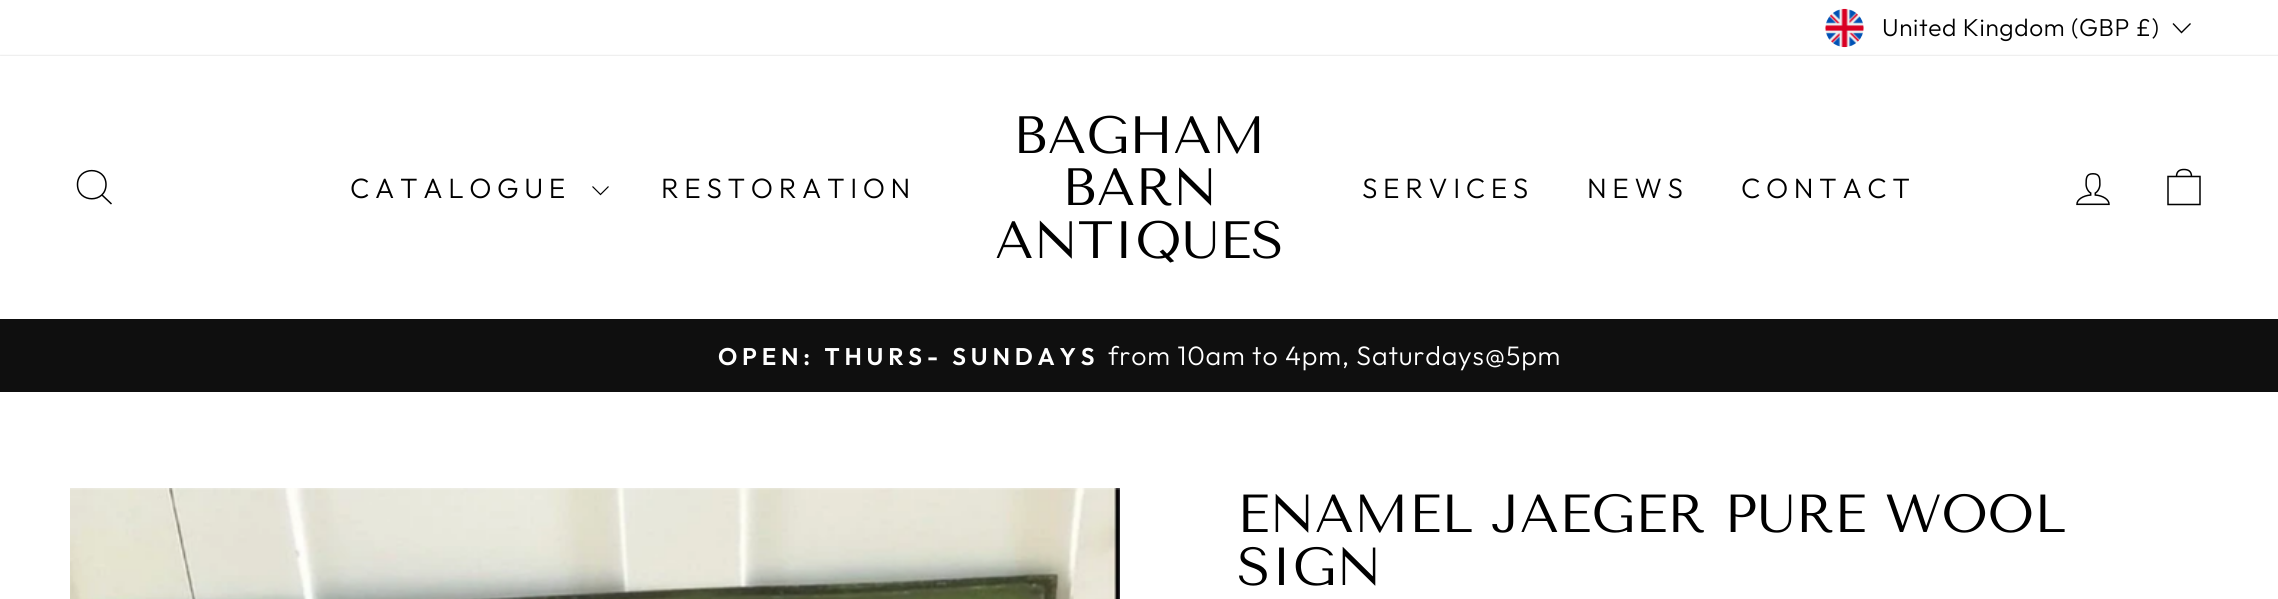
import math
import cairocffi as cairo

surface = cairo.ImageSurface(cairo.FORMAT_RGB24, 2278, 599)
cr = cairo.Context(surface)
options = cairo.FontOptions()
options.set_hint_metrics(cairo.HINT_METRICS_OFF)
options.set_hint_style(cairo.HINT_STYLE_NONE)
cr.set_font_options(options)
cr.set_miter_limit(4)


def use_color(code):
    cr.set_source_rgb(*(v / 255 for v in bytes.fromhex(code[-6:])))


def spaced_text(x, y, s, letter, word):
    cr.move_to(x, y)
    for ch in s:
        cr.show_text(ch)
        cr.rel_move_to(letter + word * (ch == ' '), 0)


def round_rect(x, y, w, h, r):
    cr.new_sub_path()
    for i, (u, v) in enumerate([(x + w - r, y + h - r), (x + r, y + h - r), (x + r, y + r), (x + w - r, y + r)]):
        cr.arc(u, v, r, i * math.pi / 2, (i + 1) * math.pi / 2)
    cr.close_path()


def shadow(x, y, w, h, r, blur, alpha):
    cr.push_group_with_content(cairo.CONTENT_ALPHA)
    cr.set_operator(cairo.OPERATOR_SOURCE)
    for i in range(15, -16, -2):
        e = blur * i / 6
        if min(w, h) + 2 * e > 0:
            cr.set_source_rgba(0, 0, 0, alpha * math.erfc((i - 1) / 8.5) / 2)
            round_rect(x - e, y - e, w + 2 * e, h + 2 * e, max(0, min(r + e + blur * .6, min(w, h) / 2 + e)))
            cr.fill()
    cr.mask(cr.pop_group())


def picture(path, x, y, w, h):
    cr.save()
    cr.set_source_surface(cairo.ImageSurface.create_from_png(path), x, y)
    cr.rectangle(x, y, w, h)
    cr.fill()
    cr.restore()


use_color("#ffffff")
cr.paint()
picture("img1.png", 1825, 8, 39, 40)
cr.select_font_face("Outfit Light")
cr.set_font_size(24.5)
use_color("#000000")
spaced_text(1882, 36, "United Kingdom (GBP £)", 0.6, 0)
cr.new_path()
cr.move_to(2173, 23.5)
cr.line_to(2181.5, 32.5)
cr.line_to(2190.5, 23.5)
cr.set_line_width(1.4)
cr.stroke()
use_color("#0f0f0f")
cr.rectangle(0, 319, 2278, 73)
cr.fill()
use_color("#000000")
shadow(0, 56, 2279, 263, 0, 1, 0.2)
use_color("#ffffff")
cr.rectangle(0, 56, 2278, 263)
cr.fill()
cr.new_path()
cr.move_to(106, 184.5)
cr.curve_to(106, 203.5, 77.5, 203.5, 77.5, 184.5)
cr.curve_to(77.5, 166, 106, 166, 106, 184.5)
cr.close_path()
cr.move_to(111.5, 204)
cr.line_to(102, 195)
use_color("#000000")
cr.set_line_width(1.5)
cr.stroke()
cr.set_font_size(28)
spaced_text(350, 198, "CATALOGUE", 5.6, 0)
cr.new_path()
cr.move_to(592.5, 186.5)
cr.line_to(600.5, 194.5)
cr.line_to(608.5, 186.5)
cr.set_line_width(1.2)
cr.stroke()
spaced_text(661, 198, "RESTORATION", 5.6, 0)
cr.select_font_face("Tenor Sans")
cr.set_font_size(52.5)
cr.move_to(1013, 153)
cr.show_text("BAGHAM")
cr.move_to(1062, 205)
cr.show_text("BARN")
cr.move_to(995, 258)
cr.show_text("ANTIQUES")
cr.select_font_face("Outfit Light")
cr.set_font_size(28)
spaced_text(1362, 198, "SERVICES", 5.6, 0)
spaced_text(1587, 198, "NEWS", 5.6, 0)
spaced_text(1741, 198, "CONTACT", 5.6, 0)
picture("img2.png", 2076, 173, 34, 33)
cr.new_path()
cr.move_to(2168, 176.5)
cr.line_to(2200, 176.5)
cr.line_to(2200, 204.5)
cr.line_to(2168, 204.5)
cr.close_path()
cr.move_to(2176.5, 176.5)
cr.curve_to(2176.5, 171, 2180, 169.5, 2184, 169.5)
cr.curve_to(2188, 169.5, 2191.5, 171, 2191.5, 176.5)
cr.set_line_width(1.5)
cr.stroke()
cr.select_font_face("Outfit SemiBold")
cr.set_font_size(24.1)
use_color("#ffffff")
spaced_text(718, 365, "OPEN: THURS- SUNDAYS", 4.8, 0)
cr.select_font_face("Outfit Light")
cr.set_font_size(26.75)
spaced_text(1108, 365, "from 10am to 4pm, Saturdays@5pm", 0.8, 0)
picture("img3.png", 70, 488, 1050, 111)
cr.select_font_face("Tenor Sans")
cr.set_font_size(53.5)
use_color("#000000")
cr.move_to(1237, 532)
cr.show_text("ENAMEL JAEGER PURE WOOL")
cr.move_to(1237, 585)
cr.show_text("SIGN")
surface.write_to_png("result.png")
